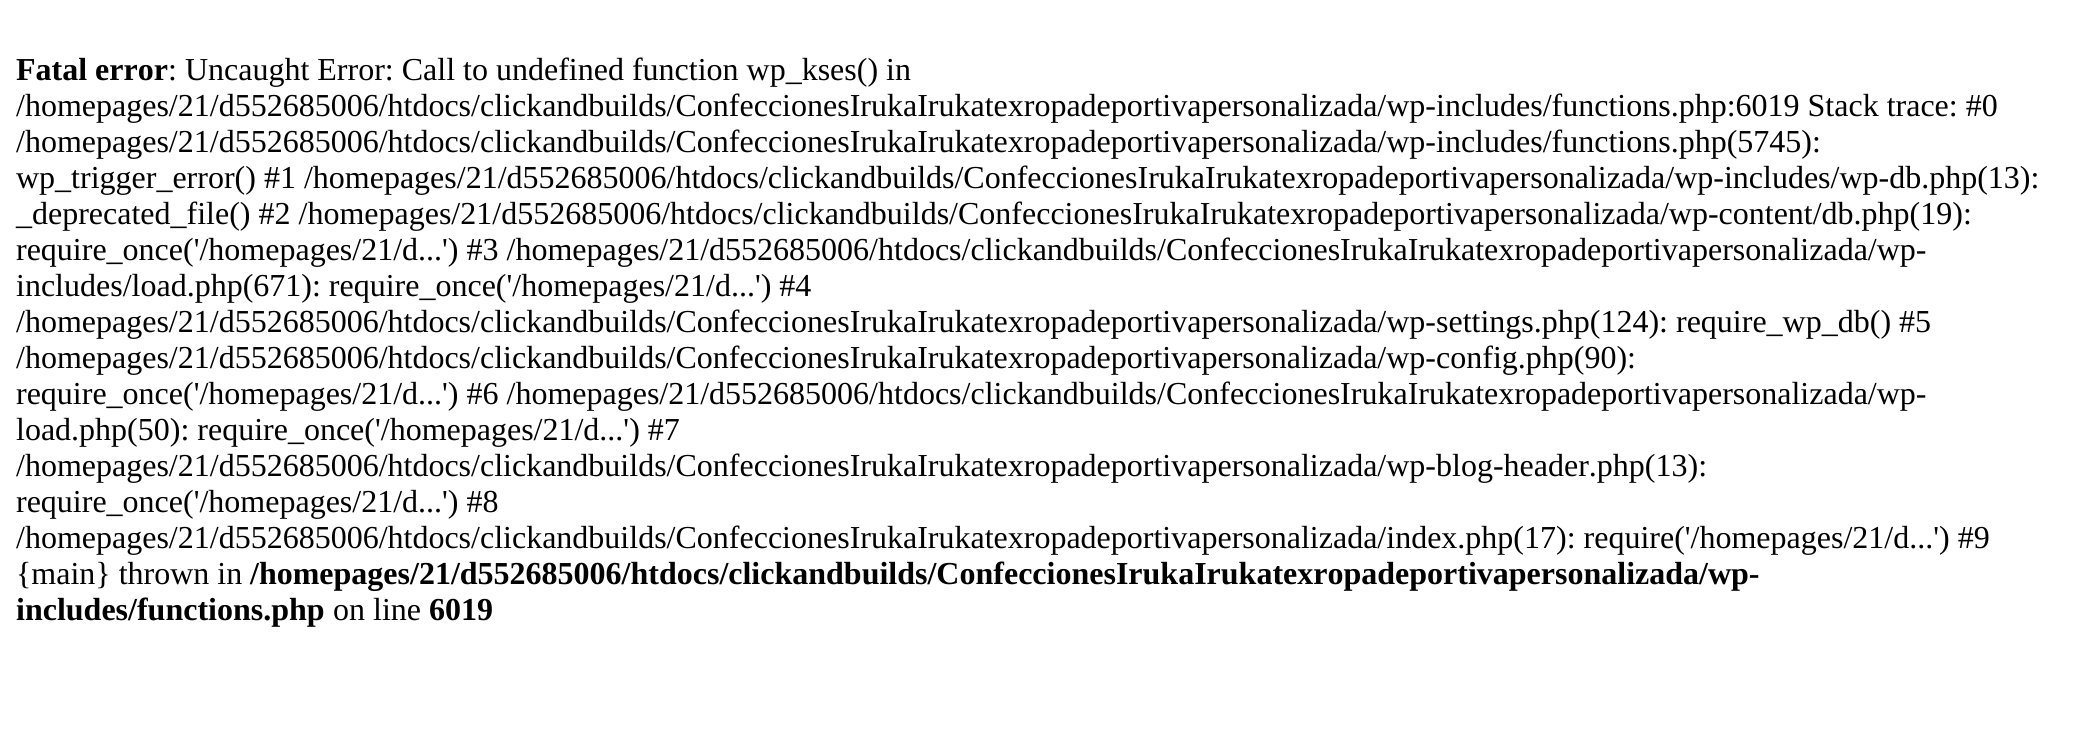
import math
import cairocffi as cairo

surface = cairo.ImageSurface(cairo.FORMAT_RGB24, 2073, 754)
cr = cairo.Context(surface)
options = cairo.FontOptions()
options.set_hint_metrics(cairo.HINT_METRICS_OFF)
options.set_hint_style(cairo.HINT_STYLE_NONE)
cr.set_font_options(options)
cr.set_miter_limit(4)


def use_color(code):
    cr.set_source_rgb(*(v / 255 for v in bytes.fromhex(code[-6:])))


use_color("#ffffff")
cr.paint()
cr.select_font_face("Liberation Serif", cairo.FONT_SLANT_NORMAL, cairo.FONT_WEIGHT_BOLD)
cr.set_font_size(32)
use_color("#000000")
cr.move_to(16, 80)
cr.show_text("Fatal error")
cr.select_font_face("Liberation Serif")
cr.move_to(168, 80)
cr.show_text(": Uncaught Error: Call to undefined function wp_kses() in")
cr.move_to(16, 116)
cr.show_text("/homepages/21/d552685006/htdocs/clickandbuilds/ConfeccionesIrukaIrukatexropadeportivapersonalizada/wp-includes/functions.php:6019 Stack trace: #0")
cr.move_to(16, 152)
cr.show_text("/homepages/21/d552685006/htdocs/clickandbuilds/ConfeccionesIrukaIrukatexropadeportivapersonalizada/wp-includes/functions.php(5745):")
cr.move_to(16, 188)
cr.show_text("wp_trigger_error() #1 /homepages/21/d552685006/htdocs/clickandbuilds/ConfeccionesIrukaIrukatexropadeportivapersonalizada/wp-includes/wp-db.php(13):")
cr.move_to(16, 224)
cr.show_text("_deprecated_file() #2 /homepages/21/d552685006/htdocs/clickandbuilds/ConfeccionesIrukaIrukatexropadeportivapersonalizada/wp-content/db.php(19):")
cr.move_to(16, 260)
cr.show_text("require_once('/homepages/21/d...') #3 /homepages/21/d552685006/htdocs/clickandbuilds/ConfeccionesIrukaIrukatexropadeportivapersonalizada/wp-")
cr.move_to(16, 296)
cr.show_text("includes/load.php(671): require_once('/homepages/21/d...') #4")
cr.move_to(16, 332)
cr.show_text("/homepages/21/d552685006/htdocs/clickandbuilds/ConfeccionesIrukaIrukatexropadeportivapersonalizada/wp-settings.php(124): require_wp_db() #5")
cr.move_to(16, 368)
cr.show_text("/homepages/21/d552685006/htdocs/clickandbuilds/ConfeccionesIrukaIrukatexropadeportivapersonalizada/wp-config.php(90):")
cr.move_to(16, 404)
cr.show_text("require_once('/homepages/21/d...') #6 /homepages/21/d552685006/htdocs/clickandbuilds/ConfeccionesIrukaIrukatexropadeportivapersonalizada/wp-")
cr.move_to(16, 440)
cr.show_text("load.php(50): require_once('/homepages/21/d...') #7")
cr.move_to(16, 476)
cr.show_text("/homepages/21/d552685006/htdocs/clickandbuilds/ConfeccionesIrukaIrukatexropadeportivapersonalizada/wp-blog-header.php(13):")
cr.move_to(16, 512)
cr.show_text("require_once('/homepages/21/d...') #8")
cr.move_to(16, 548)
cr.show_text("/homepages/21/d552685006/htdocs/clickandbuilds/ConfeccionesIrukaIrukatexropadeportivapersonalizada/index.php(17): require('/homepages/21/d...') #9")
cr.move_to(16, 584)
cr.show_text("{main} thrown in")
cr.select_font_face("Liberation Serif", cairo.FONT_SLANT_NORMAL, cairo.FONT_WEIGHT_BOLD)
cr.move_to(250, 584)
cr.show_text("/homepages/21/d552685006/htdocs/clickandbuilds/ConfeccionesIrukaIrukatexropadeportivapersonalizada/wp-")
cr.move_to(16, 620)
cr.show_text("includes/functions.php")
cr.select_font_face("Liberation Serif")
cr.move_to(333, 620)
cr.show_text("on line")
cr.select_font_face("Liberation Serif", cairo.FONT_SLANT_NORMAL, cairo.FONT_WEIGHT_BOLD)
cr.move_to(429, 620)
cr.show_text("6019")
surface.write_to_png("result.png")
